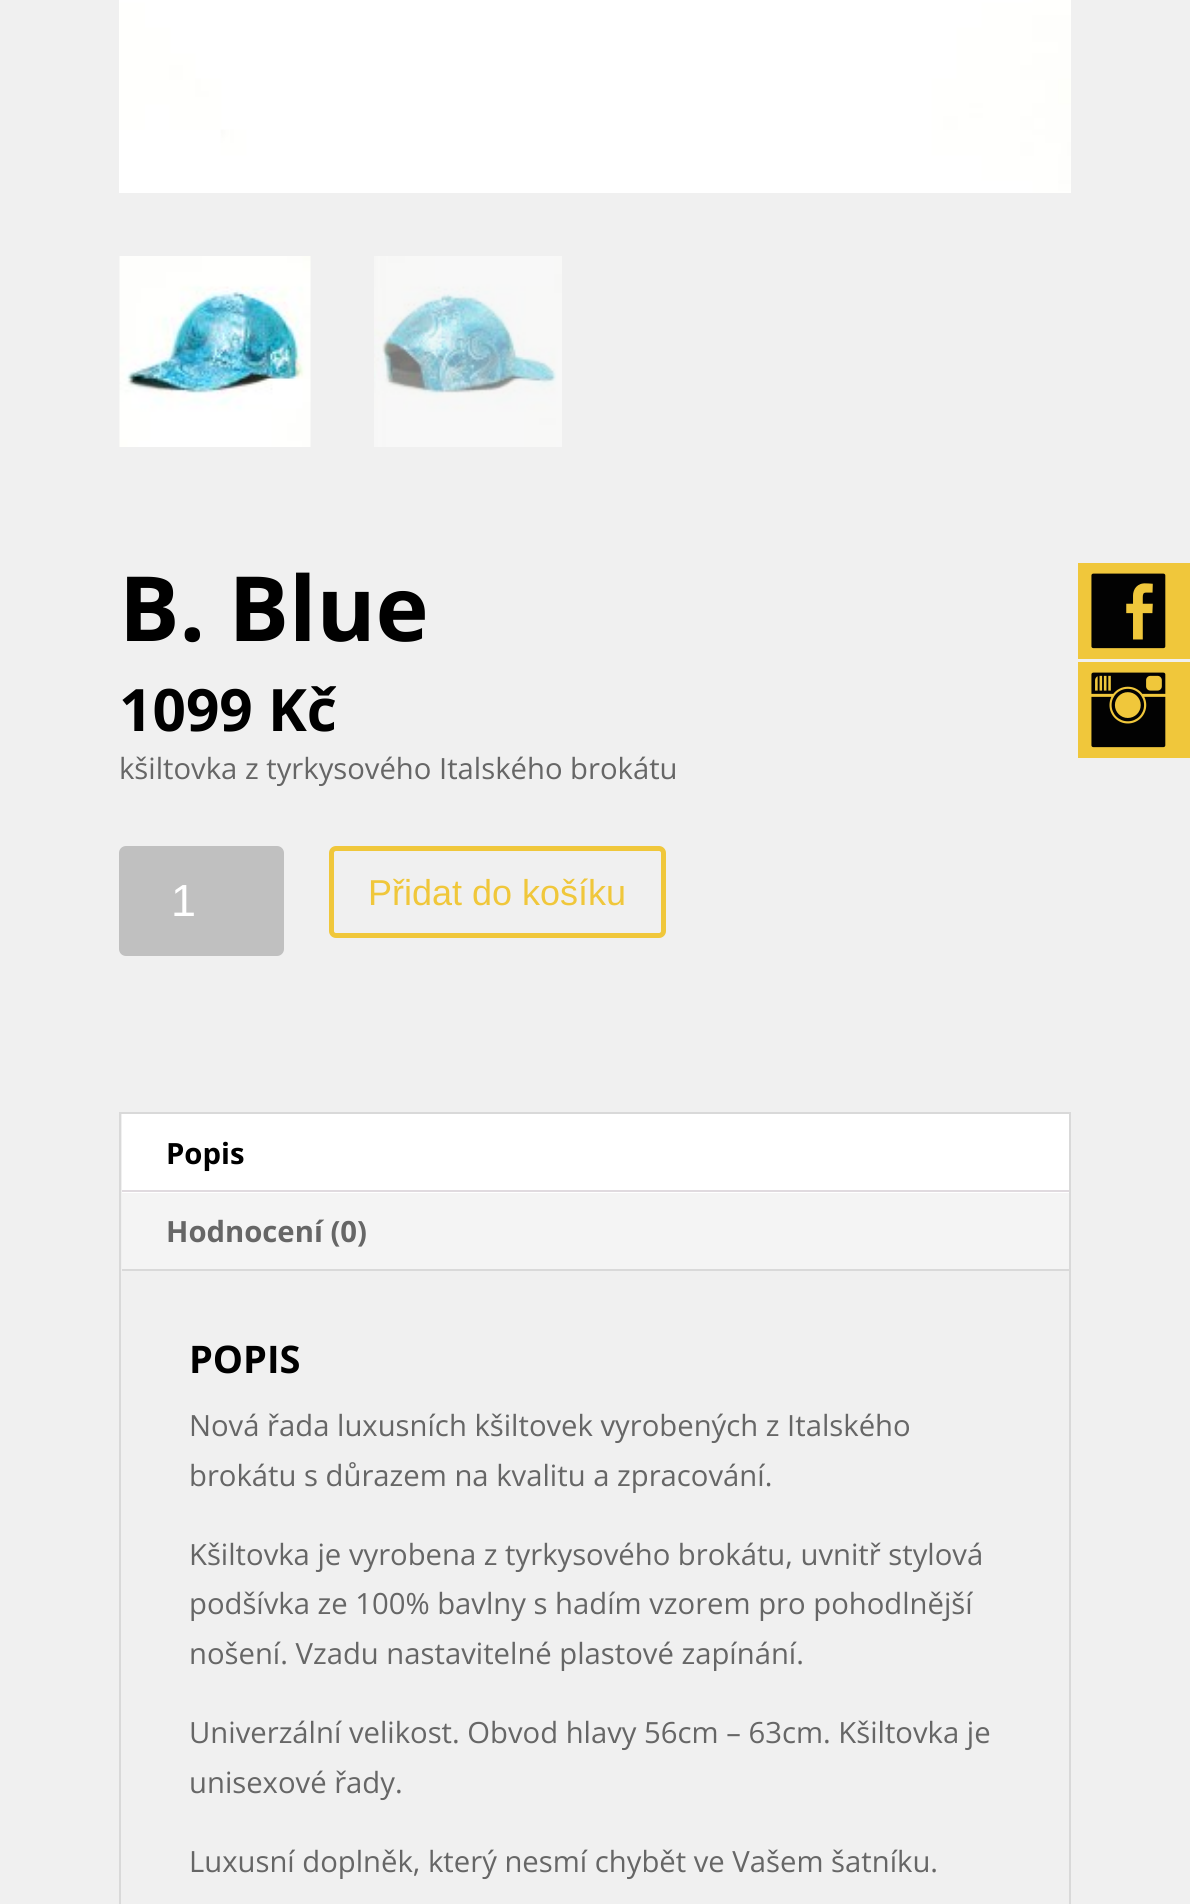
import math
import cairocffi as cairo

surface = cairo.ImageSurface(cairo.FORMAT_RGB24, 1190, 1904)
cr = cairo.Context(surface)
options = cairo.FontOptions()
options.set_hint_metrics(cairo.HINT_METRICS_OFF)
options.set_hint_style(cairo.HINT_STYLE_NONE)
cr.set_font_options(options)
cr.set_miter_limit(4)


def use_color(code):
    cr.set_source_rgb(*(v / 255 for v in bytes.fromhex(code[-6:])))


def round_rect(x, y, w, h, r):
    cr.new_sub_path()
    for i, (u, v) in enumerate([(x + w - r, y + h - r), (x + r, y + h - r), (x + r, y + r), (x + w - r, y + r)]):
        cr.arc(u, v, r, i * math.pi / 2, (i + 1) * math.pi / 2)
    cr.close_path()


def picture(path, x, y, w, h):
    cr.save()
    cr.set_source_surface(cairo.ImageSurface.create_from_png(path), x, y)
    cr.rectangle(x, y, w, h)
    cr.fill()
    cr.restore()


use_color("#f0f0f0")
cr.paint()
picture("img1.png", 119, 0, 952, 193)
picture("img2.png", 119, 256, 192, 191)
picture("img3.png", 374, 256, 188, 191)
cr.select_font_face("Open Sans", cairo.FONT_SLANT_NORMAL, cairo.FONT_WEIGHT_BOLD)
cr.set_font_size(90)
use_color("#000000")
cr.move_to(119, 641)
cr.show_text("B. Blue")
cr.set_font_size(58.5)
cr.move_to(119, 731)
cr.show_text("1099 Kč")
cr.select_font_face("Open Sans")
cr.set_font_size(29.25)
use_color("#666666")
cr.move_to(119, 779)
cr.show_text("kšiltovka z tyrkysového Italského brokátu")
use_color("#c0c0c0")
round_rect(119, 846, 165, 110, 7)
cr.fill()
cr.select_font_face("Liberation Sans")
cr.set_font_size(45)
use_color("#ffffff")
cr.move_to(171, 916)
cr.show_text("1")
round_rect(331.5, 848.5, 332, 87, 4.5)
use_color("#f0c73b")
cr.set_line_width(5)
cr.stroke()
cr.set_font_size(36)
cr.move_to(368, 905)
cr.show_text("Přidat do košíku")
cr.rectangle(120, 1113, 950, 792)
use_color("#d9d9d9")
cr.set_line_width(2)
cr.stroke()
use_color("#f4f4f4")
cr.rectangle(122, 1193, 947, 76)
cr.fill()
use_color("#ffffff")
cr.rectangle(122, 1114, 947, 79)
cr.fill()
use_color("#e0dadf")
cr.rectangle(122, 1190, 947, 2)
cr.fill()
cr.select_font_face("Open Sans", cairo.FONT_SLANT_NORMAL, cairo.FONT_WEIGHT_BOLD)
cr.set_font_size(29.25)
use_color("#000000")
cr.move_to(166, 1164)
cr.show_text("Popis")
use_color("#666666")
cr.move_to(166, 1242)
cr.show_text("Hodnocení (0)")
use_color("#d9d9d9")
cr.rectangle(122, 1269, 947, 2)
cr.fill()
cr.set_font_size(38)
use_color("#000000")
cr.move_to(189, 1373)
cr.show_text("POPIS")
cr.select_font_face("Open Sans")
cr.set_font_size(29.25)
use_color("#666666")
cr.move_to(189, 1436)
cr.show_text("Nová řada luxusních kšiltovek vyrobených z Italského")
cr.move_to(189, 1486)
cr.show_text("brokátu s důrazem na kvalitu a zpracování.")
cr.move_to(189, 1565)
cr.show_text("Kšiltovka je vyrobena z tyrkysového brokátu, uvnitř stylová")
cr.move_to(189, 1614)
cr.show_text("podšívka ze 100% bavlny s hadím vzorem pro pohodlnější")
cr.move_to(189, 1664)
cr.show_text("nošení. Vzadu nastavitelné plastové zapínání.")
cr.move_to(189, 1743)
cr.show_text("Univerzální velikost. Obvod hlavy 56cm – 63cm. Kšiltovka je")
cr.move_to(189, 1793)
cr.show_text("unisexové řady.")
cr.move_to(189, 1872)
cr.show_text("Luxusní doplněk, který nesmí chybět ve Vašem šatníku.")
use_color("#f0c73b")
cr.rectangle(1078, 563, 112, 96)
cr.fill()
picture("img4.png", 1091, 573, 75, 76)
cr.rectangle(1078, 662, 112, 96)
cr.fill()
picture("img5.png", 1091, 672, 75, 76)
surface.write_to_png("result.png")
